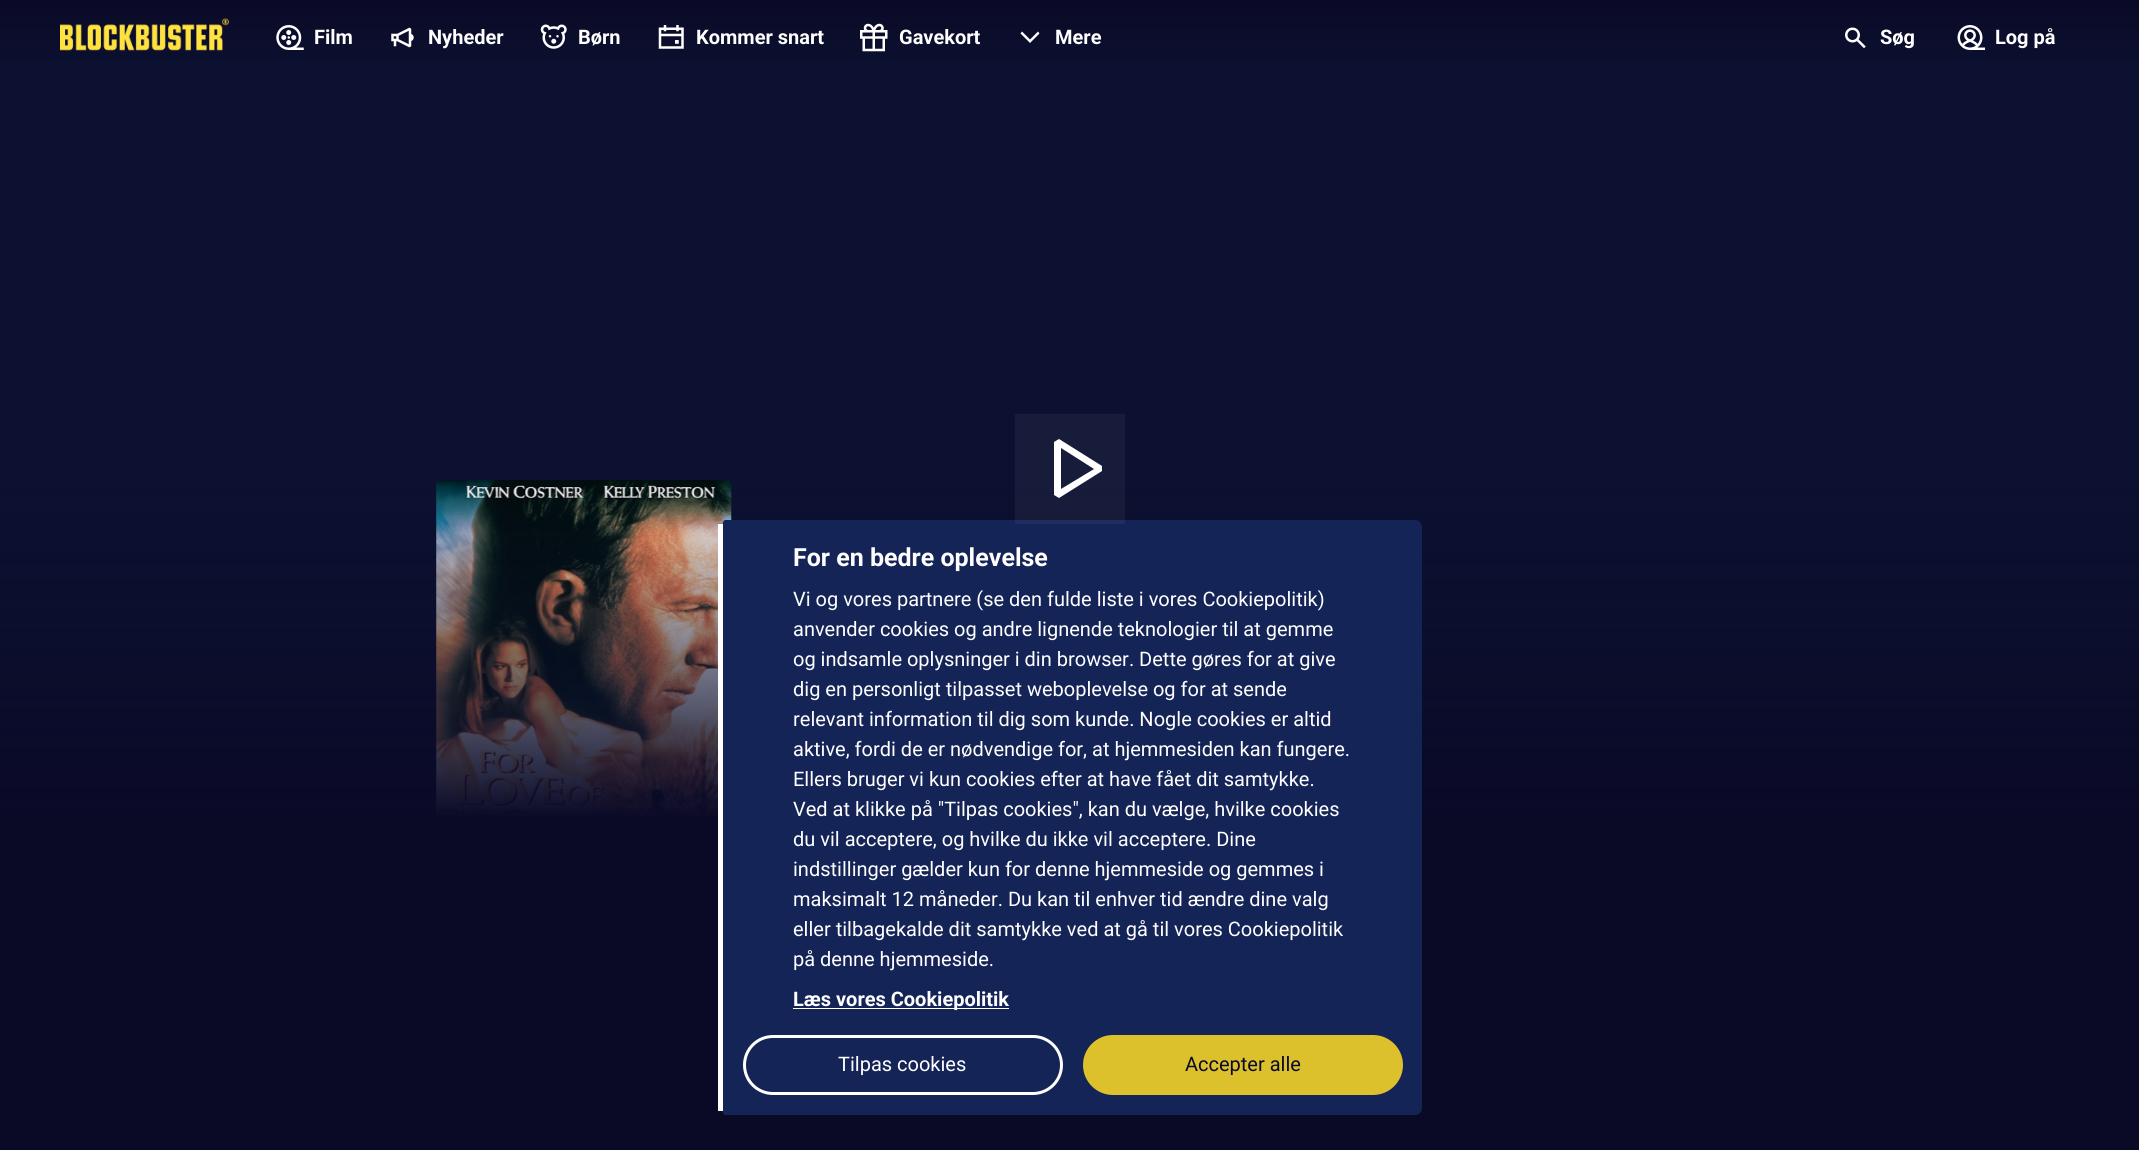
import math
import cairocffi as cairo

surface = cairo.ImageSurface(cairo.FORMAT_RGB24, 2139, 1150)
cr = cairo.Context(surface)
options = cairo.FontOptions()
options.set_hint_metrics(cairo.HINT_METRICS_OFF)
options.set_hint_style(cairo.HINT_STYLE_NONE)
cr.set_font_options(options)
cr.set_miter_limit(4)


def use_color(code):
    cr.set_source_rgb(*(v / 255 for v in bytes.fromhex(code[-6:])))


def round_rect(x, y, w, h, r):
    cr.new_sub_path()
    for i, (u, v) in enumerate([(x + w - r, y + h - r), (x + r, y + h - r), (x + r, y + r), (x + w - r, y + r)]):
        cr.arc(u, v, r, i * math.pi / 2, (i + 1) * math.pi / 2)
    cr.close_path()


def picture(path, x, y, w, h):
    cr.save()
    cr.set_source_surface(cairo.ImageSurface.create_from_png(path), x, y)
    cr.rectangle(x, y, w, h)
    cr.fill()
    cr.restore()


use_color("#0c1131")
cr.paint()
gradient = cairo.LinearGradient(1070, 80, 1070, 0)
gradient.add_color_stop_rgba(0, 0.047, 0.067, 0.192, 1)
gradient.add_color_stop_rgba(1, 0.039, 0.039, 0.153, 1)
cr.set_source(gradient)
cr.rectangle(0, 0, 2139, 60)
cr.fill()
picture("img1.png", 60, 18, 169, 33)
picture("img2.png", 276, 25, 28, 25)
cr.select_font_face("Roboto", cairo.FONT_SLANT_NORMAL, cairo.FONT_WEIGHT_BOLD)
cr.set_font_size(20)
use_color("#ffffff")
cr.move_to(314, 44)
cr.show_text("Film")
picture("img3.png", 391, 27, 23, 21)
cr.move_to(428, 44)
cr.show_text("Nyheder")
picture("img4.png", 540, 24, 27, 25)
cr.move_to(578, 44)
cr.show_text("Børn")
picture("img5.png", 658, 25, 26, 24)
cr.move_to(696, 44)
cr.show_text("Kommer snart")
picture("img6.png", 860, 23, 28, 29)
cr.move_to(899, 44)
cr.show_text("Gavekort")
cr.new_path()
cr.move_to(1022, 31.5)
cr.line_to(1020.5, 33.5)
cr.line_to(1030, 43)
cr.line_to(1039.5, 33.5)
cr.line_to(1038, 31.5)
cr.line_to(1030, 39.5)
cr.close_path()
cr.fill()
cr.move_to(1055, 44)
cr.show_text("Mere")
picture("img7.png", 1845, 27, 21, 22)
cr.move_to(1880, 44)
cr.show_text("Søg")
picture("img8.png", 1957, 25, 28, 25)
cr.move_to(1995, 44)
cr.show_text("Log på")
use_color("#14214d")
round_rect(436, 480, 295, 425, 5)
cr.fill()
picture("img9.png", 436, 480, 296, 336)
gradient = cairo.LinearGradient(1070, 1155, 1070, 480)
gradient.add_color_stop_rgba(0, 0.039, 0.039, 0.153, 1)
gradient.add_color_stop_rgba(0.5, 0.039, 0.039, 0.153, 1)
gradient.add_color_stop_rgba(1, 0.039, 0.039, 0.153, 0)
cr.set_source(gradient)
cr.rectangle(0, 487, 2139, 663)
cr.fill()
use_color("#152457")
cr.new_path()
cr.move_to(725, 520)
cr.line_to(1415, 520)
cr.curve_to(1419, 520, 1422, 523, 1422, 528)
cr.line_to(1422, 1108)
cr.curve_to(1422, 1112, 1419, 1115, 1415, 1115)
cr.line_to(725, 1115)
cr.curve_to(724, 1115, 722, 1112, 722, 1108)
cr.line_to(722, 528)
cr.curve_to(722, 523, 724, 520, 725, 520)
cr.close_path()
cr.fill()
cr.set_source_rgba(1, 1, 1, 0.05)
cr.rectangle(1015, 414, 110, 110)
cr.fill()
use_color("#ffffff")
cr.new_path()
cr.move_to(1059, 498)
cr.line_to(1054, 495)
cr.line_to(1054, 442)
cr.line_to(1059, 439)
cr.line_to(1102, 466)
cr.line_to(1102, 471)
cr.close_path()
cr.move_to(1061, 448)
cr.line_to(1061, 489)
cr.line_to(1094, 469)
cr.close_path()
cr.fill()
cr.rectangle(718, 524, 5, 587)
cr.fill()
cr.set_font_size(25)
cr.move_to(793, 566)
cr.show_text("For en bedre oplevelse")
cr.select_font_face("Roboto")
cr.set_font_size(20)
cr.move_to(793, 606)
cr.show_text("Vi og vores partnere (se den fulde liste i vores Cookiepolitik)")
cr.move_to(793, 636)
cr.show_text("anvender cookies og andre lignende teknologier til at gemme")
cr.move_to(793, 666)
cr.show_text("og indsamle oplysninger i din browser. Dette gøres for at give")
cr.move_to(793, 696)
cr.show_text("dig en personligt tilpasset weboplevelse og for at sende")
cr.move_to(793, 726)
cr.show_text("relevant information til dig som kunde. Nogle cookies er altid")
cr.move_to(793, 756)
cr.show_text("aktive, fordi de er nødvendige for, at hjemmesiden kan fungere.")
cr.move_to(793, 786)
cr.show_text("Ellers bruger vi kun cookies efter at have fået dit samtykke.")
cr.move_to(793, 816)
cr.show_text("Ved at klikke på \"Tilpas cookies\", kan du vælge, hvilke cookies")
cr.move_to(793, 846)
cr.show_text("du vil acceptere, og hvilke du ikke vil acceptere. Dine")
cr.move_to(793, 876)
cr.show_text("indstillinger gælder kun for denne hjemmeside og gemmes i")
cr.move_to(793, 906)
cr.show_text("maksimalt 12 måneder. Du kan til enhver tid ændre dine valg")
cr.move_to(793, 936)
cr.show_text("eller tilbagekalde dit samtykke ved at gå til vores Cookiepolitik")
cr.move_to(793, 966)
cr.show_text("på denne hjemmeside.")
cr.rectangle(793, 1008, 216, 1)
cr.fill()
cr.select_font_face("Roboto", cairo.FONT_SLANT_NORMAL, cairo.FONT_WEIGHT_BOLD)
cr.move_to(793, 1006)
cr.show_text("Læs vores Cookiepolitik")
round_rect(744.5, 1036.5, 317, 57, 28.5)
cr.set_line_width(3)
cr.stroke()
cr.select_font_face("Roboto")
cr.move_to(838, 1071)
cr.show_text("Tilpas cookies")
use_color("#ddc12c")
round_rect(1084.5, 1036.5, 317, 57, 28.5)
cr.fill_preserve()
cr.stroke()
use_color("#0a0a27")
cr.move_to(1185, 1071)
cr.show_text("Accepter alle")
surface.write_to_png("result.png")
